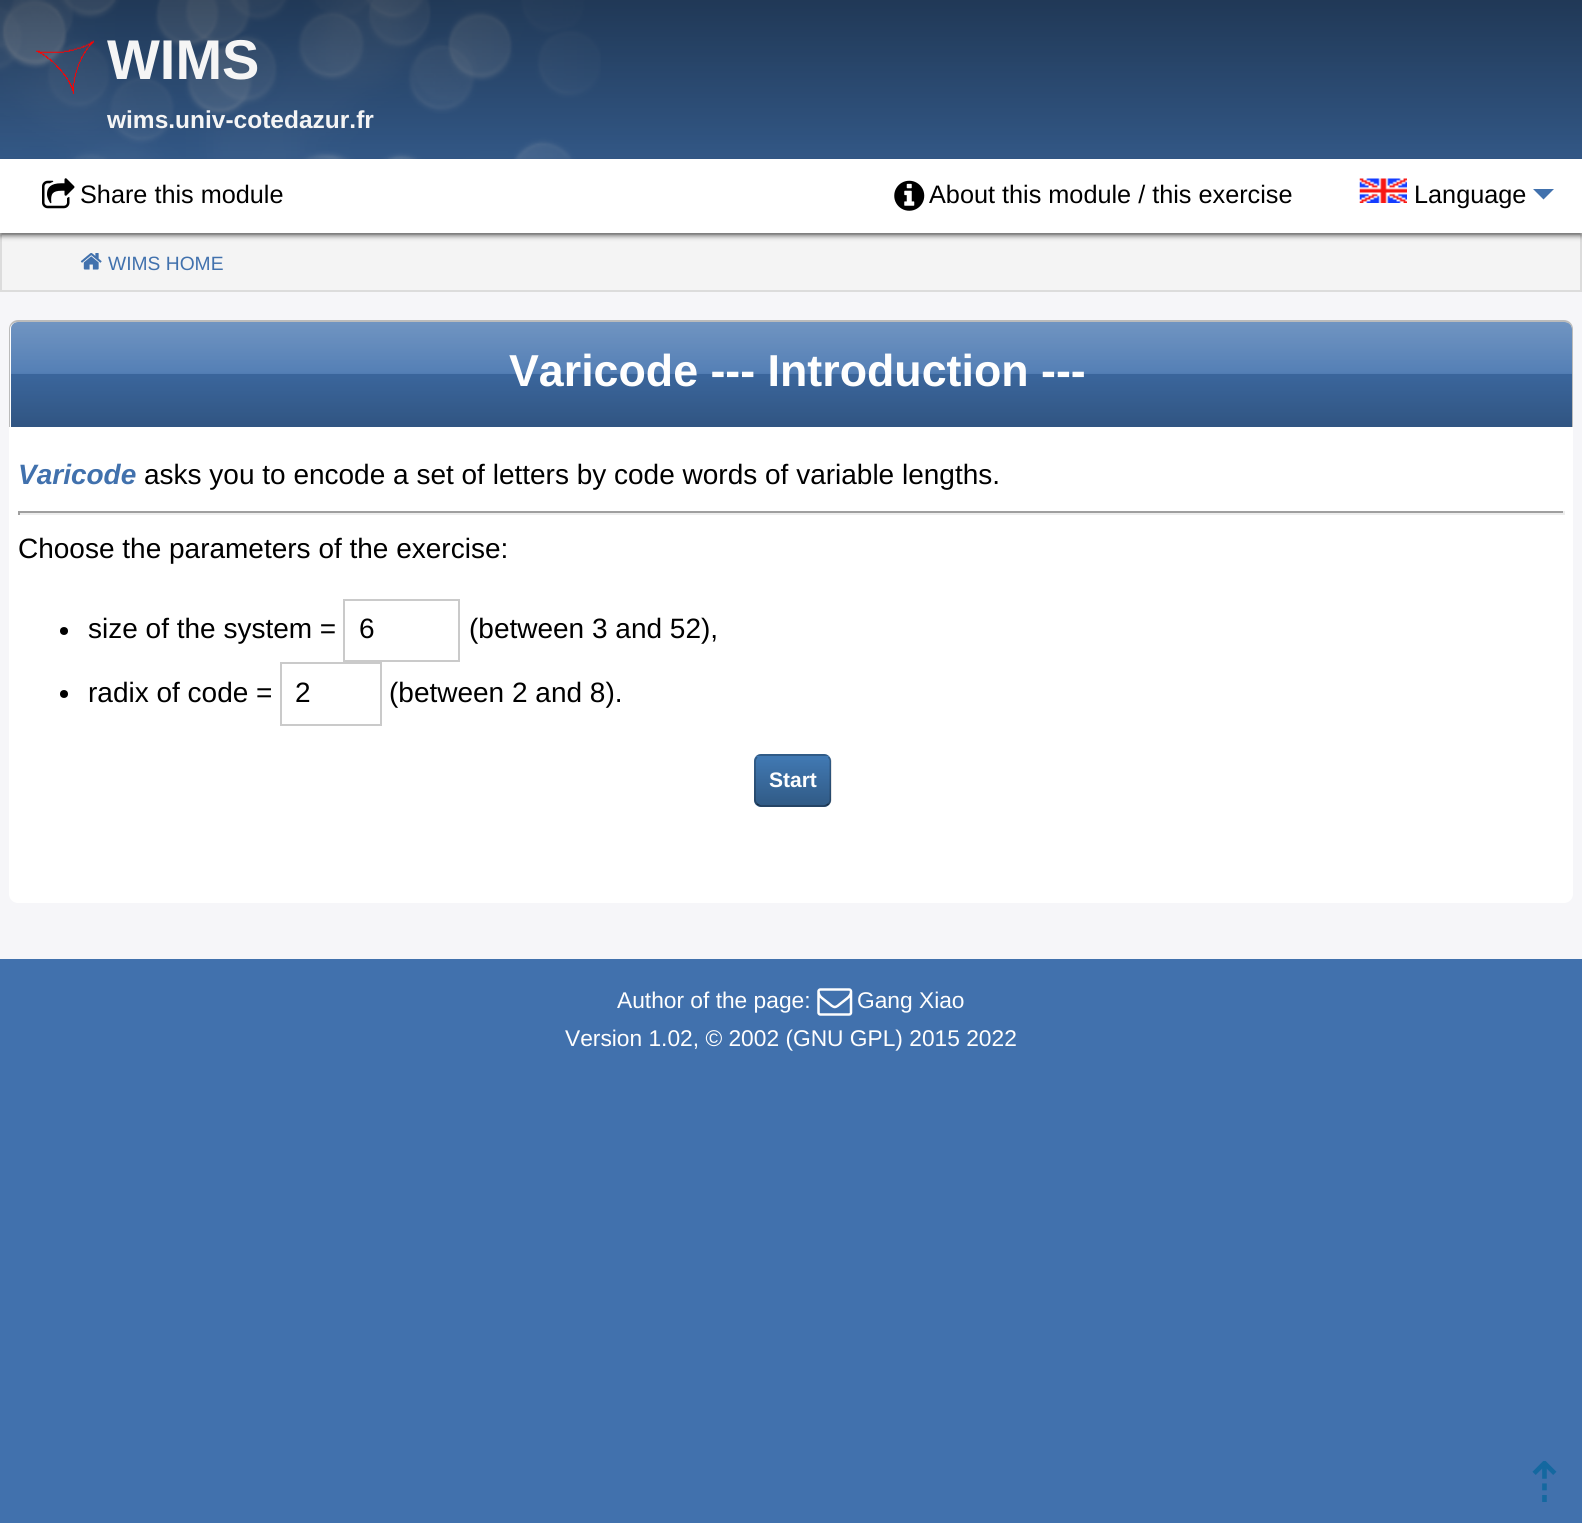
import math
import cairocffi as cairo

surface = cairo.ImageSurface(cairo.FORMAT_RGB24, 1582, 1523)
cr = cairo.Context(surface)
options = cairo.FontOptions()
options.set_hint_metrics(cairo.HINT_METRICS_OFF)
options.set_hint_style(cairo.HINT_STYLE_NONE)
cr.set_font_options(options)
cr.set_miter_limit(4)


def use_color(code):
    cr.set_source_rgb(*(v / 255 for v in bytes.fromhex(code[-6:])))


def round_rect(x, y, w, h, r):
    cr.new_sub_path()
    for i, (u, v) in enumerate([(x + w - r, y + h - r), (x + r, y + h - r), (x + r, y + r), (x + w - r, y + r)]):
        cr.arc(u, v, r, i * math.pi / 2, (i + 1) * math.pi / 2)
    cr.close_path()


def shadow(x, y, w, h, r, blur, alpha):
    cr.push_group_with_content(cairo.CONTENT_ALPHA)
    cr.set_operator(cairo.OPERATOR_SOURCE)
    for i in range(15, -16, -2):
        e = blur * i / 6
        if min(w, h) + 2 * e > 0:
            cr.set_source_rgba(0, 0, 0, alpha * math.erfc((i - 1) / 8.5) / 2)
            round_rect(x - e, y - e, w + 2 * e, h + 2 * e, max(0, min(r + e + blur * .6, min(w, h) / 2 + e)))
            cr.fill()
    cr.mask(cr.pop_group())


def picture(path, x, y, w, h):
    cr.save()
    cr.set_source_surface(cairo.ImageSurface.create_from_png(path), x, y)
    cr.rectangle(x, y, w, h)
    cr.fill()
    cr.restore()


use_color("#4171ad")
cr.paint()
picture("img1.png", 0, 0, 601, 159)
gradient = cairo.LinearGradient(791, 0, 791, 292)
gradient.add_color_stop_rgba(0, 0, 0, 0, 0.5)
gradient.add_color_stop_rgba(1, 0, 0, 0, 0)
cr.set_source(gradient)
cr.rectangle(0, 0, 1582, 159)
cr.fill()
picture("img2.png", 36, 40, 58, 54)
cr.select_font_face("Liberation Sans", cairo.FONT_SLANT_NORMAL, cairo.FONT_WEIGHT_BOLD)
cr.set_font_size(56)
use_color("#f5f5f5")
cr.move_to(107, 79)
cr.show_text("WIMS")
cr.set_font_size(24.5)
cr.move_to(107, 128)
cr.show_text("wims.univ-cotedazur.fr")
use_color("#f4f4f4")
cr.rectangle(1, 234, 1580, 57)
cr.fill_preserve()
use_color("#dcdcdc")
cr.stroke()
use_color("#000000")
shadow(0, 163, 1582, 73, 0, 2.5, 0.5)
use_color("#ffffff")
cr.rectangle(0, 159, 1582, 74)
cr.fill()
picture("img3.png", 42, 178, 33, 31)
cr.select_font_face("Liberation Sans")
cr.set_font_size(25.25)
use_color("#000000")
cr.move_to(80, 203)
cr.show_text("Share this module")
picture("img4.png", 894, 180, 31, 31)
cr.move_to(929, 203)
cr.show_text("About this module / this exercise")
picture("img5.png", 1359, 178, 48, 25)
cr.move_to(1414, 203)
cr.show_text("Language")
use_color("#4171ad")
cr.new_path()
cr.move_to(1533, 189)
cr.line_to(1554, 189)
cr.line_to(1543.5, 199.5)
cr.close_path()
cr.fill()
picture("img6.png", 80, 253, 22, 17)
cr.set_font_size(19.25)
cr.move_to(108, 270)
cr.show_text("WIMS HOME")
use_color("#f6f6f9")
cr.rectangle(0, 292, 1582, 667)
cr.fill()
use_color("#ffffff")
round_rect(9, 320, 1564, 583, 9)
cr.fill()
use_color("#4171ad")
cr.new_path()
cr.move_to(18, 322)
cr.line_to(1565, 322)
cr.curve_to(1569, 322, 1572, 325, 1572, 329)
cr.line_to(1572, 427)
cr.line_to(11, 427)
cr.line_to(11, 329)
cr.curve_to(11, 325, 14, 322, 18, 322)
cr.close_path()
cr.fill()
gradient = cairo.LinearGradient(791, 322, 791, 427)
gradient.add_color_stop_rgba(0, 1, 1, 1, 0.25)
gradient.add_color_stop_rgba(0.49, 1, 1, 1, 0.1)
gradient.add_color_stop_rgba(0.5, 0, 0, 0, 0.1)
gradient.add_color_stop_rgba(1, 0, 0, 0, 0.25)
cr.set_source(gradient)
cr.new_path()
cr.move_to(18, 322)
cr.line_to(1565, 322)
cr.curve_to(1569, 322, 1572, 325, 1572, 329)
cr.line_to(1572, 427)
cr.line_to(11, 427)
cr.line_to(11, 329)
cr.curve_to(11, 325, 14, 322, 18, 322)
cr.close_path()
cr.fill()
use_color("#bbbbbb")
cr.set_fill_rule(cairo.FILL_RULE_EVEN_ODD)
cr.new_path()
cr.move_to(18, 320)
cr.line_to(1564, 320)
cr.curve_to(1569, 320, 1573, 324, 1573, 329)
cr.line_to(1573, 427)
cr.line_to(9, 427)
cr.line_to(9, 329)
cr.curve_to(9, 324, 13, 320, 18, 320)
cr.close_path()
cr.move_to(18, 322)
cr.line_to(1564, 322)
cr.curve_to(1568, 322, 1572, 325, 1572, 329)
cr.line_to(1572, 427)
cr.line_to(10, 427)
cr.line_to(10, 329)
cr.curve_to(10, 325, 14, 322, 18, 322)
cr.close_path()
cr.fill()
cr.select_font_face("Liberation Sans", cairo.FONT_SLANT_NORMAL, cairo.FONT_WEIGHT_BOLD)
cr.set_font_size(44.75)
use_color("#fefefe")
cr.move_to(509, 386)
cr.show_text("Varicode --- Introduction ---")
cr.select_font_face("Liberation Sans", cairo.FONT_SLANT_ITALIC, cairo.FONT_WEIGHT_BOLD)
cr.set_font_size(28)
use_color("#4171ad")
cr.move_to(18, 484)
cr.show_text("Varicode")
cr.select_font_face("Liberation Sans")
use_color("#000000")
cr.move_to(144, 484)
cr.show_text("asks you to encode a set of letters by code words of variable lengths.")
use_color("#9f9f9f")
cr.rectangle(18, 511, 1547, 2)
cr.fill()
use_color("#eeeeee")
cr.rectangle(1563, 511, 2, 4)
cr.fill()
cr.rectangle(18, 513, 1547, 2)
cr.fill()
use_color("#9f9f9f")
cr.rectangle(18, 511, 2, 4)
cr.fill()
use_color("#000000")
cr.move_to(18, 558)
cr.show_text("Choose the parameters of the exercise:")
cr.new_path()
cr.arc(64, 631, 4, 0, 2 * math.pi)
cr.fill()
cr.move_to(88, 638)
cr.show_text("size of the system =")
cr.rectangle(344, 600, 115, 61)
use_color("#cacaca")
cr.stroke()
use_color("#000000")
cr.move_to(359, 638)
cr.show_text("6")
cr.move_to(469, 638)
cr.show_text("(between 3 and 52),")
cr.new_path()
cr.arc(64, 694, 4, 0, 2 * math.pi)
cr.fill()
cr.move_to(88, 702)
cr.show_text("radix of code =")
cr.rectangle(281, 663, 100, 62)
use_color("#cacaca")
cr.stroke()
use_color("#000000")
cr.move_to(295, 702)
cr.show_text("2")
cr.move_to(389, 702)
cr.show_text("(between 2 and 8).")
use_color("#4179b3")
round_rect(754, 754, 77, 53, 7)
cr.fill()
cr.save()
cr.set_fill_rule(cairo.FILL_RULE_WINDING)
round_rect(754, 754, 77, 53, 7)
cr.clip()
gradient = cairo.LinearGradient(793, 707, 793, 756)
gradient.add_color_stop_rgba(0, 0, 0, 0, 0)
gradient.add_color_stop_rgba(1, 0, 0, 0, 0.25)
cr.set_source(gradient)
cr.rectangle(754, 754, 77, 2)
cr.fill()
gradient = cairo.LinearGradient(793, 756, 793, 805)
gradient.add_color_stop_rgba(0, 0, 0, 0, 0)
gradient.add_color_stop_rgba(1, 0, 0, 0, 0.25)
cr.set_source(gradient)
cr.rectangle(754, 760, 77, 45)
cr.fill()
cr.restore()
cr.new_path()
cr.move_to(828.5, 757)
cr.curve_to(829.5, 758, 830.5, 759.5, 830.5, 761)
cr.line_to(830.5, 800)
cr.curve_to(830.5, 801.5, 829.5, 803, 828.5, 804)
cr.set_source_rgba(0, 0, 0, 0.25)
cr.set_line_width(1.8)
cr.stroke()
cr.new_path()
cr.move_to(828.5, 804)
cr.curve_to(827.5, 805, 826, 806, 824, 806)
cr.line_to(761, 806)
cr.curve_to(759.5, 806, 758, 805, 757, 804)
cr.set_source_rgba(0, 0, 0, 0.5)
cr.stroke()
cr.new_path()
cr.move_to(757, 804)
cr.curve_to(756, 803, 755, 801.5, 755, 800)
cr.line_to(755, 761)
cr.curve_to(755, 759.5, 756, 758, 757, 757)
cr.set_source_rgba(0, 0, 0, 0.25)
cr.stroke()
cr.select_font_face("Liberation Sans", cairo.FONT_SLANT_NORMAL, cairo.FONT_WEIGHT_BOLD)
cr.set_font_size(21)
use_color("#fefefe")
cr.move_to(769, 787)
cr.show_text("Start")
cr.select_font_face("DejaVu Sans")
cr.set_font_size(56)
use_color("#1468a0")
cr.move_to(1521, 1502)
cr.show_text("⇡")
cr.select_font_face("Liberation Sans")
cr.set_font_size(22.75)
use_color("#fefefe")
cr.move_to(617, 1008)
cr.show_text("Author of the page:")
picture("img7.png", 817, 988, 36, 28)
cr.move_to(857, 1008)
cr.show_text("Gang Xiao")
cr.move_to(565, 1046)
cr.show_text("Version 1.02, © 2002 (GNU GPL) 2015 2022")
surface.write_to_png("result.png")
